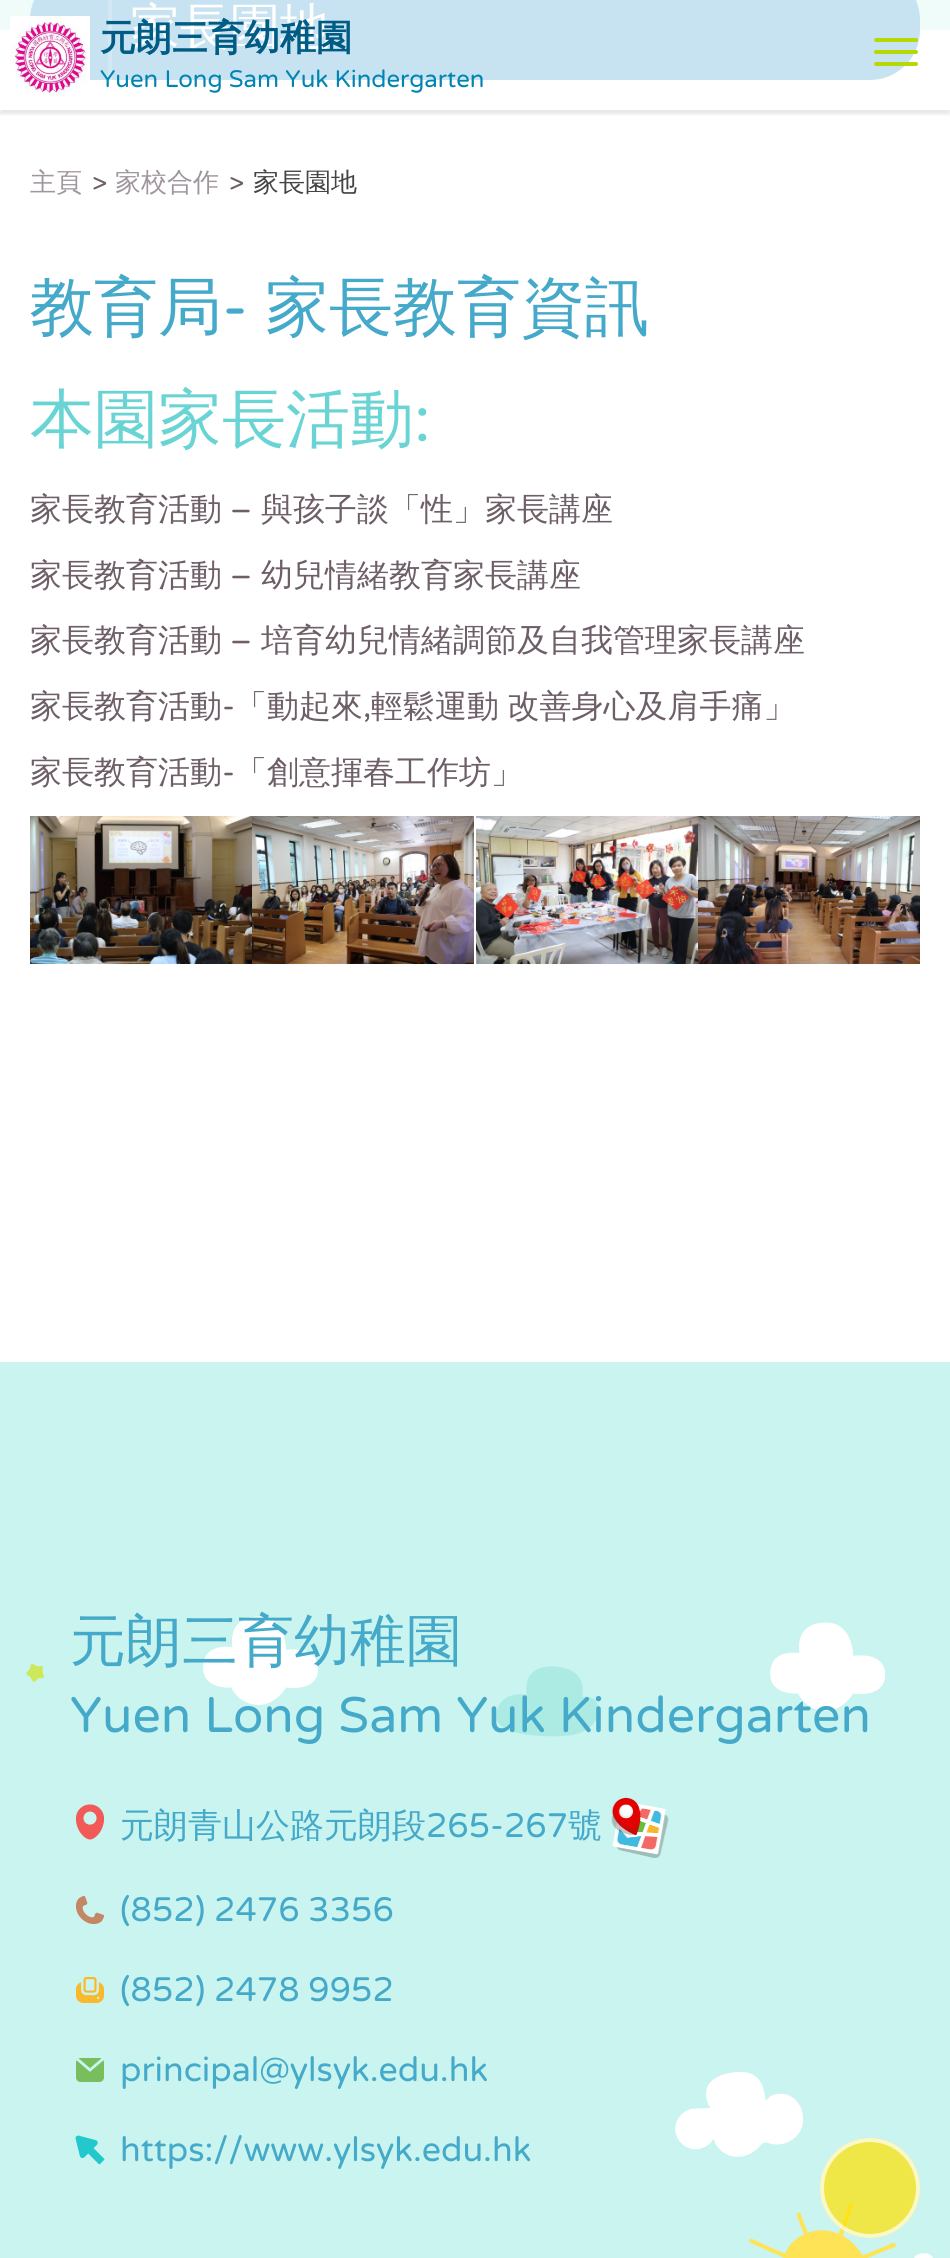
import math
import cairocffi as cairo

surface = cairo.ImageSurface(cairo.FORMAT_RGB24, 950, 2258)
cr = cairo.Context(surface)
options = cairo.FontOptions()
options.set_hint_metrics(cairo.HINT_METRICS_OFF)
options.set_hint_style(cairo.HINT_STYLE_NONE)
cr.set_font_options(options)
cr.set_miter_limit(4)


def use_color(code):
    cr.set_source_rgb(*(v / 255 for v in bytes.fromhex(code[-6:])))


def spaced_text(x, y, s, letter, word):
    cr.move_to(x, y)
    for ch in s:
        cr.show_text(ch)
        cr.rel_move_to(letter + word * (ch == ' '), 0)


def round_rect(x, y, w, h, r):
    cr.new_sub_path()
    for i, (u, v) in enumerate([(x + w - r, y + h - r), (x + r, y + h - r), (x + r, y + r), (x + w - r, y + r)]):
        cr.arc(u, v, r, i * math.pi / 2, (i + 1) * math.pi / 2)
    cr.close_path()


def shadow(x, y, w, h, r, blur, alpha):
    cr.push_group_with_content(cairo.CONTENT_ALPHA)
    cr.set_operator(cairo.OPERATOR_SOURCE)
    for i in range(15, -16, -2):
        e = blur * i / 6
        if min(w, h) + 2 * e > 0:
            cr.set_source_rgba(0, 0, 0, alpha * math.erfc((i - 1) / 8.5) / 2)
            round_rect(x - e, y - e, w + 2 * e, h + 2 * e, max(0, min(r + e + blur * .6, min(w, h) / 2 + e)))
            cr.fill()
    cr.mask(cr.pop_group())


def picture(path, x, y, w, h):
    cr.save()
    cr.set_source_surface(cairo.ImageSurface.create_from_png(path), x, y)
    cr.rectangle(x, y, w, h)
    cr.fill()
    cr.restore()


use_color("#c9f4ef")
cr.paint()
use_color("#effcfa")
cr.rectangle(0, 0, 950, 30)
cr.fill()
use_color("#ffffff")
cr.rectangle(0, 30, 950, 1332)
cr.fill()
use_color("#c7e2f1")
round_rect(30, -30, 890, 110, 50)
cr.fill()
use_color("#d2e8f4")
cr.rectangle(108, 0, 4, 80)
cr.fill()
cr.select_font_face("WenQuanYi Zen Hei Medium")
cr.set_font_size(50)
use_color("#ffffff")
cr.move_to(130, 44)
cr.show_text("家長園地")
cr.set_font_size(26)
use_color("#9f959d")
cr.move_to(30, 191)
cr.show_text("主頁")
cr.select_font_face("Varela Round")
use_color("#6e5e68")
cr.move_to(92, 191)
cr.show_text(">")
cr.select_font_face("WenQuanYi Zen Hei Medium")
use_color("#9f959d")
cr.move_to(115, 191)
cr.show_text("家校合作")
cr.select_font_face("Varela Round")
use_color("#6e5e68")
cr.move_to(229, 191)
cr.show_text(">")
cr.select_font_face("WenQuanYi Zen Hei Medium")
use_color("#434343")
cr.move_to(253, 191)
cr.show_text("家長園地")
cr.set_font_size(64)
use_color("#45a9c9")
cr.move_to(30, 329)
cr.show_text("教育局")
cr.select_font_face("Varela Round")
cr.move_to(222, 329)
cr.show_text("-")
cr.select_font_face("WenQuanYi Zen Hei Medium")
cr.move_to(265, 329)
cr.show_text("家長教育資訊")
use_color("#6ad4d4")
cr.move_to(30, 441)
cr.show_text("本園家長活動")
cr.select_font_face("Varela Round")
cr.move_to(414, 441)
cr.show_text(":")
cr.select_font_face("WenQuanYi Zen Hei Medium")
cr.set_font_size(32)
use_color("#6e5e68")
cr.move_to(30, 520)
cr.show_text("家長教育活動")
cr.select_font_face("Varela Round")
cr.move_to(230, 520)
cr.show_text("–")
cr.select_font_face("WenQuanYi Zen Hei Medium")
cr.move_to(261, 520)
cr.show_text("與孩子談「性」家長講座")
cr.move_to(30, 586)
cr.show_text("家長教育活動")
cr.select_font_face("Varela Round")
cr.move_to(230, 586)
cr.show_text("–")
cr.select_font_face("WenQuanYi Zen Hei Medium")
cr.move_to(261, 586)
cr.show_text("幼兒情緒教育家長講座")
cr.move_to(30, 651)
cr.show_text("家長教育活動")
cr.select_font_face("Varela Round")
cr.move_to(230, 651)
cr.show_text("–")
cr.select_font_face("WenQuanYi Zen Hei Medium")
cr.move_to(261, 651)
cr.show_text("培育幼兒情緒調節及自我管理家長講座")
cr.move_to(30, 717)
cr.show_text("家長教育活動")
cr.select_font_face("Varela Round")
cr.move_to(222, 717)
cr.show_text("-")
cr.select_font_face("WenQuanYi Zen Hei Medium")
cr.move_to(235, 717)
cr.show_text("「動起來")
spaced_text(371, 717, "輕鬆運動 改善身心及肩手痛」", 0, -1)
cr.select_font_face("Varela Round")
cr.move_to(363, 717)
cr.show_text(",")
cr.select_font_face("WenQuanYi Zen Hei Medium")
cr.move_to(30, 783)
cr.show_text("家長教育活動")
cr.select_font_face("Varela Round")
cr.move_to(222, 783)
cr.show_text("-")
cr.select_font_face("WenQuanYi Zen Hei Medium")
cr.move_to(235, 783)
cr.show_text("「創意揮春工作坊」")
picture("img1.png", 30, 816, 222, 148)
picture("img2.png", 252, 816, 222, 148)
picture("img3.png", 476, 816, 222, 148)
picture("img4.png", 698, 816, 222, 148)
cr.save()
cr.rectangle(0, 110, 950, 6)
cr.clip()
use_color("#000000")
shadow(0, 4, 950, 110, 0, 2, 0.1)
cr.restore()
picture("img5.png", 10, 16, 80, 77)
cr.select_font_face("WenQuanYi Zen Hei", cairo.FONT_SLANT_NORMAL, cairo.FONT_WEIGHT_BOLD)
cr.set_font_size(36)
use_color("#005c84")
cr.move_to(100, 50)
cr.show_text("元朗三育幼稚園")
cr.select_font_face("Varela Round")
cr.set_font_size(24)
use_color("#0084b2")
cr.move_to(100, 87)
cr.show_text("Yuen Long Sam Yuk Kindergarten")
use_color("#b6d805")
round_rect(874, 38, 44, 4, 2)
cr.fill()
round_rect(874, 50, 44, 4, 2)
cr.fill()
round_rect(874, 62, 44, 4, 2)
cr.fill()
picture("img6.png", 26, 1616, 907, 642)
cr.select_font_face("WenQuanYi Zen Hei Medium")
cr.set_font_size(56)
use_color("#45a9c9")
cr.move_to(70, 1660)
cr.show_text("元朗三育幼稚園")
cr.select_font_face("Varela Round")
cr.set_font_size(50)
cr.move_to(70, 1732)
cr.show_text("Yuen Long Sam Yuk Kindergarten")
picture("img7.png", 76, 1804, 28, 36)
cr.select_font_face("WenQuanYi Zen Hei Medium")
cr.set_font_size(34)
cr.move_to(120, 1837)
cr.show_text("元朗青山公路元朗段")
cr.select_font_face("Varela Round")
cr.move_to(426, 1837)
cr.show_text("265-267")
cr.select_font_face("WenQuanYi Zen Hei Medium")
cr.move_to(568, 1837)
cr.show_text("號")
picture("img8.png", 611, 1797, 58, 61)
picture("img9.png", 75, 1896, 29, 28)
cr.select_font_face("Varela Round")
cr.move_to(120, 1921)
cr.show_text("(852) 2476 3356")
picture("img10.png", 76, 1977, 28, 26)
cr.move_to(120, 2001)
cr.show_text("(852) 2478 9952")
picture("img11.png", 76, 2058, 28, 24)
cr.move_to(120, 2081)
cr.show_text("principal@ylsyk.edu.hk")
picture("img12.png", 75, 2135, 30, 30)
cr.move_to(120, 2161)
cr.show_text("https://www.ylsyk.edu.hk")
cr.set_source_rgba(1, 0.882, 0, 0.7)
cr.new_path()
cr.arc(870, 2188, 50, 0, 2 * math.pi)
cr.fill()
cr.arc(870, 2188, 48, 0, 2 * math.pi)
cr.set_source_rgba(1, 1, 1, 0.7)
cr.set_line_width(4)
cr.stroke()
surface.write_to_png("result.png")
